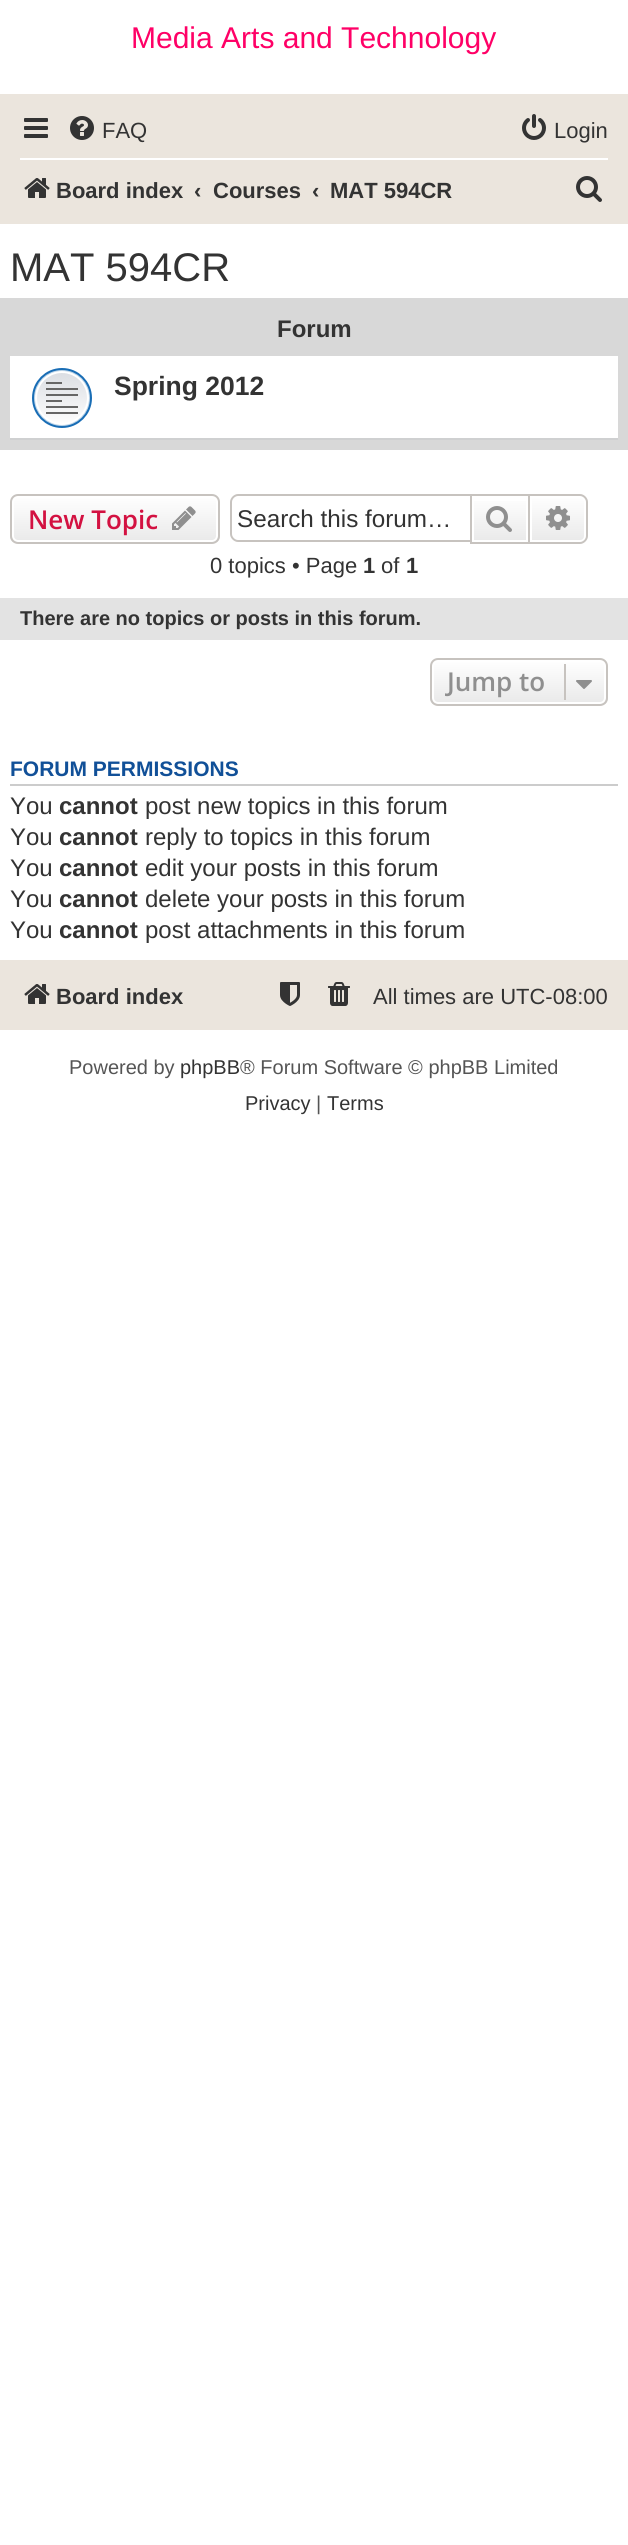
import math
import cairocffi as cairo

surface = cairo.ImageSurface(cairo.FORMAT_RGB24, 628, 2545)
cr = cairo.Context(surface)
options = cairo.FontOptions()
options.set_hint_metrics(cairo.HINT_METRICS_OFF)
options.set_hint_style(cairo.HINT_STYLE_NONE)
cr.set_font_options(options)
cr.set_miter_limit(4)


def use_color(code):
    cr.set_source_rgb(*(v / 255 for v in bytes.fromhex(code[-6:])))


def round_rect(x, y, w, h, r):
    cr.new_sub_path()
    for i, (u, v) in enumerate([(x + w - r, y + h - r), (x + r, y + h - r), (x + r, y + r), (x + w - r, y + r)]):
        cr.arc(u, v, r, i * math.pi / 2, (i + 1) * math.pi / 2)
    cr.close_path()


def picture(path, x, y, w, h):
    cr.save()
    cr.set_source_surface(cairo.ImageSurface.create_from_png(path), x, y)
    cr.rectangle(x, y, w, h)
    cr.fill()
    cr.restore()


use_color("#ffffff")
cr.paint()
cr.select_font_face("Liberation Sans")
cr.set_font_size(30)
use_color("#ff0066")
cr.move_to(131, 48)
cr.show_text("Media Arts and Technology")
use_color("#ebe5dd")
cr.rectangle(0, 94, 628, 130)
cr.fill()
picture("img1.png", 24, 118, 24, 20)
picture("img2.png", 70, 116, 24, 24)
cr.set_font_size(22)
use_color("#333333")
cr.move_to(102, 138)
cr.show_text("FAQ")
picture("img3.png", 522, 114, 24, 26)
cr.move_to(554, 138)
cr.show_text("Login")
use_color("#ffffff")
cr.rectangle(20, 158, 588, 2)
cr.fill()
picture("img4.png", 24, 178, 26, 20)
cr.select_font_face("Liberation Sans", cairo.FONT_SLANT_NORMAL, cairo.FONT_WEIGHT_BOLD)
use_color("#333333")
cr.move_to(56, 198)
cr.show_text("Board index")
cr.move_to(194, 198)
cr.show_text("‹")
cr.move_to(213, 198)
cr.show_text("Courses")
cr.move_to(312, 198)
cr.show_text("‹")
cr.move_to(330, 198)
cr.show_text("MAT 594CR")
picture("img5.png", 576, 176, 26, 26)
cr.select_font_face("Liberation Sans")
cr.set_font_size(40)
cr.move_to(10, 281)
cr.show_text("MAT 594CR")
use_color("#d8d8d8")
cr.rectangle(0, 298, 628, 152)
cr.fill()
cr.select_font_face("Liberation Sans", cairo.FONT_SLANT_NORMAL, cairo.FONT_WEIGHT_BOLD)
cr.set_font_size(24)
use_color("#333333")
cr.move_to(277, 337)
cr.show_text("Forum")
use_color("#ffffff")
cr.rectangle(10, 356, 608, 82)
cr.fill()
use_color("#cfd0d1")
cr.rectangle(10, 438, 608, 2)
cr.fill()
picture("img6.png", 32, 368, 60, 60)
cr.set_font_size(26.5)
use_color("#333333")
cr.move_to(114, 395)
cr.show_text("Spring 2012")
cr.save()
round_rect(10, 494, 210, 50, 8)
cr.clip()
gradient = cairo.LinearGradient(115, 496, 115, 542)
gradient.add_color_stop_rgba(0, 1, 1, 1, 1)
gradient.add_color_stop_rgba(1, 0.914, 0.914, 0.914, 1)
cr.set_source(gradient)
cr.rectangle(10, 496, 210, 46)
cr.fill()
cr.restore()
round_rect(13, 497, 204, 44, 5)
use_color("#ffffff")
cr.stroke()
round_rect(11, 495, 208, 48, 7)
use_color("#c7c3bf")
cr.stroke()
cr.select_font_face("Open Sans SemiBold")
cr.set_font_size(26)
use_color("#d31141")
cr.move_to(28, 529)
cr.show_text("New Topic")
picture("img7.png", 172, 506, 24, 24)
use_color("#c7c3bf")
cr.set_fill_rule(cairo.FILL_RULE_EVEN_ODD)
cr.new_path()
cr.move_to(238, 494)
cr.line_to(470, 494)
cr.line_to(470, 542)
cr.line_to(238, 542)
cr.curve_to(234, 542, 230, 538, 230, 534)
cr.line_to(230, 502)
cr.curve_to(230, 498, 234, 494, 238, 494)
cr.close_path()
cr.move_to(238, 496)
cr.line_to(470, 496)
cr.line_to(470, 540)
cr.line_to(238, 540)
cr.curve_to(235, 540, 232, 537, 232, 534)
cr.line_to(232, 502)
cr.curve_to(232, 499, 235, 496, 238, 496)
cr.close_path()
cr.fill()
cr.select_font_face("Liberation Sans")
cr.set_font_size(24.25)
use_color("#333333")
cr.move_to(237, 527)
cr.show_text("Search this forum…")
gradient = cairo.LinearGradient(500, 496, 500, 542)
gradient.add_color_stop_rgba(0, 1, 1, 1, 1)
gradient.add_color_stop_rgba(1, 0.914, 0.914, 0.914, 1)
cr.set_source(gradient)
cr.rectangle(474, 501, 52, 39)
cr.fill()
cr.rectangle(471, 495, 58, 48)
use_color("#c7c3bf")
cr.stroke()
picture("img8.png", 486, 506, 26, 26)
gradient = cairo.LinearGradient(558, 496, 558, 542)
gradient.add_color_stop_rgba(0, 1, 1, 1, 1)
gradient.add_color_stop_rgba(1, 0.914, 0.914, 0.914, 1)
cr.set_source(gradient)
cr.new_path()
cr.move_to(531, 497)
cr.line_to(580, 497)
cr.curve_to(583, 497, 585, 499, 585, 502)
cr.line_to(585, 536)
cr.curve_to(585, 539, 583, 541, 580, 541)
cr.line_to(531, 541)
cr.close_path()
cr.fill_preserve()
use_color("#ffffff")
cr.stroke()
use_color("#c7c3bf")
cr.new_path()
cr.move_to(530, 494)
cr.line_to(580, 494)
cr.curve_to(584, 494, 588, 498, 588, 502)
cr.line_to(588, 536)
cr.curve_to(588, 540, 584, 544, 580, 544)
cr.line_to(530, 544)
cr.close_path()
cr.move_to(530, 496)
cr.line_to(580, 496)
cr.curve_to(583, 496, 586, 499, 586, 502)
cr.line_to(586, 536)
cr.curve_to(586, 539, 583, 542, 580, 542)
cr.line_to(530, 542)
cr.close_path()
cr.fill()
picture("img9.png", 546, 506, 24, 24)
cr.set_font_size(22)
use_color("#333333")
cr.move_to(210, 573)
cr.show_text("0 topics • Page")
cr.select_font_face("Liberation Sans", cairo.FONT_SLANT_NORMAL, cairo.FONT_WEIGHT_BOLD)
cr.move_to(363, 573)
cr.show_text("1")
cr.select_font_face("Liberation Sans")
cr.move_to(381, 573)
cr.show_text("of")
cr.select_font_face("Liberation Sans", cairo.FONT_SLANT_NORMAL, cairo.FONT_WEIGHT_BOLD)
cr.move_to(406, 573)
cr.show_text("1")
use_color("#e3e3e3")
cr.rectangle(0, 598, 628, 42)
cr.fill()
cr.set_font_size(20)
use_color("#333333")
cr.move_to(20, 625)
cr.show_text("There are no topics or posts in this forum.")
cr.save()
cr.set_fill_rule(cairo.FILL_RULE_WINDING)
round_rect(430, 658, 178, 48, 8)
cr.clip()
gradient = cairo.LinearGradient(519, 660, 519, 704)
gradient.add_color_stop_rgba(0, 1, 1, 1, 1)
gradient.add_color_stop_rgba(1, 0.914, 0.914, 0.914, 1)
cr.set_source(gradient)
cr.rectangle(430, 660, 178, 44)
cr.fill()
cr.restore()
round_rect(433, 661, 172, 42, 5)
use_color("#ffffff")
cr.stroke()
round_rect(431, 659, 176, 46, 7)
use_color("#c7c3bf")
cr.stroke()
cr.select_font_face("Open Sans SemiBold")
cr.set_font_size(26)
use_color("#8f8f8f")
cr.move_to(447, 691)
cr.show_text("Jump to")
use_color("#c7c3bf")
cr.rectangle(564, 664, 2, 36)
cr.fill()
picture("img10.png", 576, 680, 16, 9)
use_color("#cccccc")
cr.rectangle(10, 784, 608, 2)
cr.fill()
cr.select_font_face("Liberation Sans", cairo.FONT_SLANT_NORMAL, cairo.FONT_WEIGHT_BOLD)
cr.set_font_size(21)
use_color("#115098")
cr.move_to(10, 776)
cr.show_text("FORUM PERMISSIONS")
cr.select_font_face("Liberation Sans")
cr.set_font_size(24)
use_color("#333333")
cr.move_to(10, 814)
cr.show_text("You")
cr.select_font_face("Liberation Sans", cairo.FONT_SLANT_NORMAL, cairo.FONT_WEIGHT_BOLD)
cr.move_to(59, 814)
cr.show_text("cannot")
cr.select_font_face("Liberation Sans")
cr.move_to(145, 814)
cr.show_text("post new topics in this forum")
cr.move_to(10, 845)
cr.show_text("You")
cr.select_font_face("Liberation Sans", cairo.FONT_SLANT_NORMAL, cairo.FONT_WEIGHT_BOLD)
cr.move_to(59, 845)
cr.show_text("cannot")
cr.select_font_face("Liberation Sans")
cr.move_to(145, 845)
cr.show_text("reply to topics in this forum")
cr.move_to(10, 876)
cr.show_text("You")
cr.select_font_face("Liberation Sans", cairo.FONT_SLANT_NORMAL, cairo.FONT_WEIGHT_BOLD)
cr.move_to(59, 876)
cr.show_text("cannot")
cr.select_font_face("Liberation Sans")
cr.move_to(145, 876)
cr.show_text("edit your posts in this forum")
cr.move_to(10, 907)
cr.show_text("You")
cr.select_font_face("Liberation Sans", cairo.FONT_SLANT_NORMAL, cairo.FONT_WEIGHT_BOLD)
cr.move_to(59, 907)
cr.show_text("cannot")
cr.select_font_face("Liberation Sans")
cr.move_to(145, 907)
cr.show_text("delete your posts in this forum")
cr.move_to(10, 938)
cr.show_text("You")
cr.select_font_face("Liberation Sans", cairo.FONT_SLANT_NORMAL, cairo.FONT_WEIGHT_BOLD)
cr.move_to(59, 938)
cr.show_text("cannot")
cr.select_font_face("Liberation Sans")
cr.move_to(145, 938)
cr.show_text("post attachments in this forum")
use_color("#ebe5dd")
cr.rectangle(0, 960, 628, 70)
cr.fill()
picture("img4.png", 24, 984, 26, 20)
cr.select_font_face("Liberation Sans", cairo.FONT_SLANT_NORMAL, cairo.FONT_WEIGHT_BOLD)
cr.set_font_size(22)
use_color("#333333")
cr.move_to(56, 1004)
cr.show_text("Board index")
picture("img11.png", 280, 982, 20, 24)
picture("img12.png", 328, 982, 22, 24)
cr.select_font_face("Liberation Sans")
cr.move_to(373, 1004)
cr.show_text("All times are UTC-08:00")
cr.set_font_size(20)
use_color("#555555")
cr.move_to(69, 1074)
cr.show_text("Powered by")
use_color("#333333")
cr.move_to(180, 1074)
cr.show_text("phpBB")
use_color("#555555")
cr.move_to(240, 1074)
cr.show_text("® Forum Software © phpBB Limited")
use_color("#333333")
cr.move_to(245, 1110)
cr.show_text("Privacy")
use_color("#555555")
cr.move_to(316, 1110)
cr.show_text("|")
use_color("#333333")
cr.move_to(327, 1110)
cr.show_text("Terms")
surface.write_to_png("result.png")
